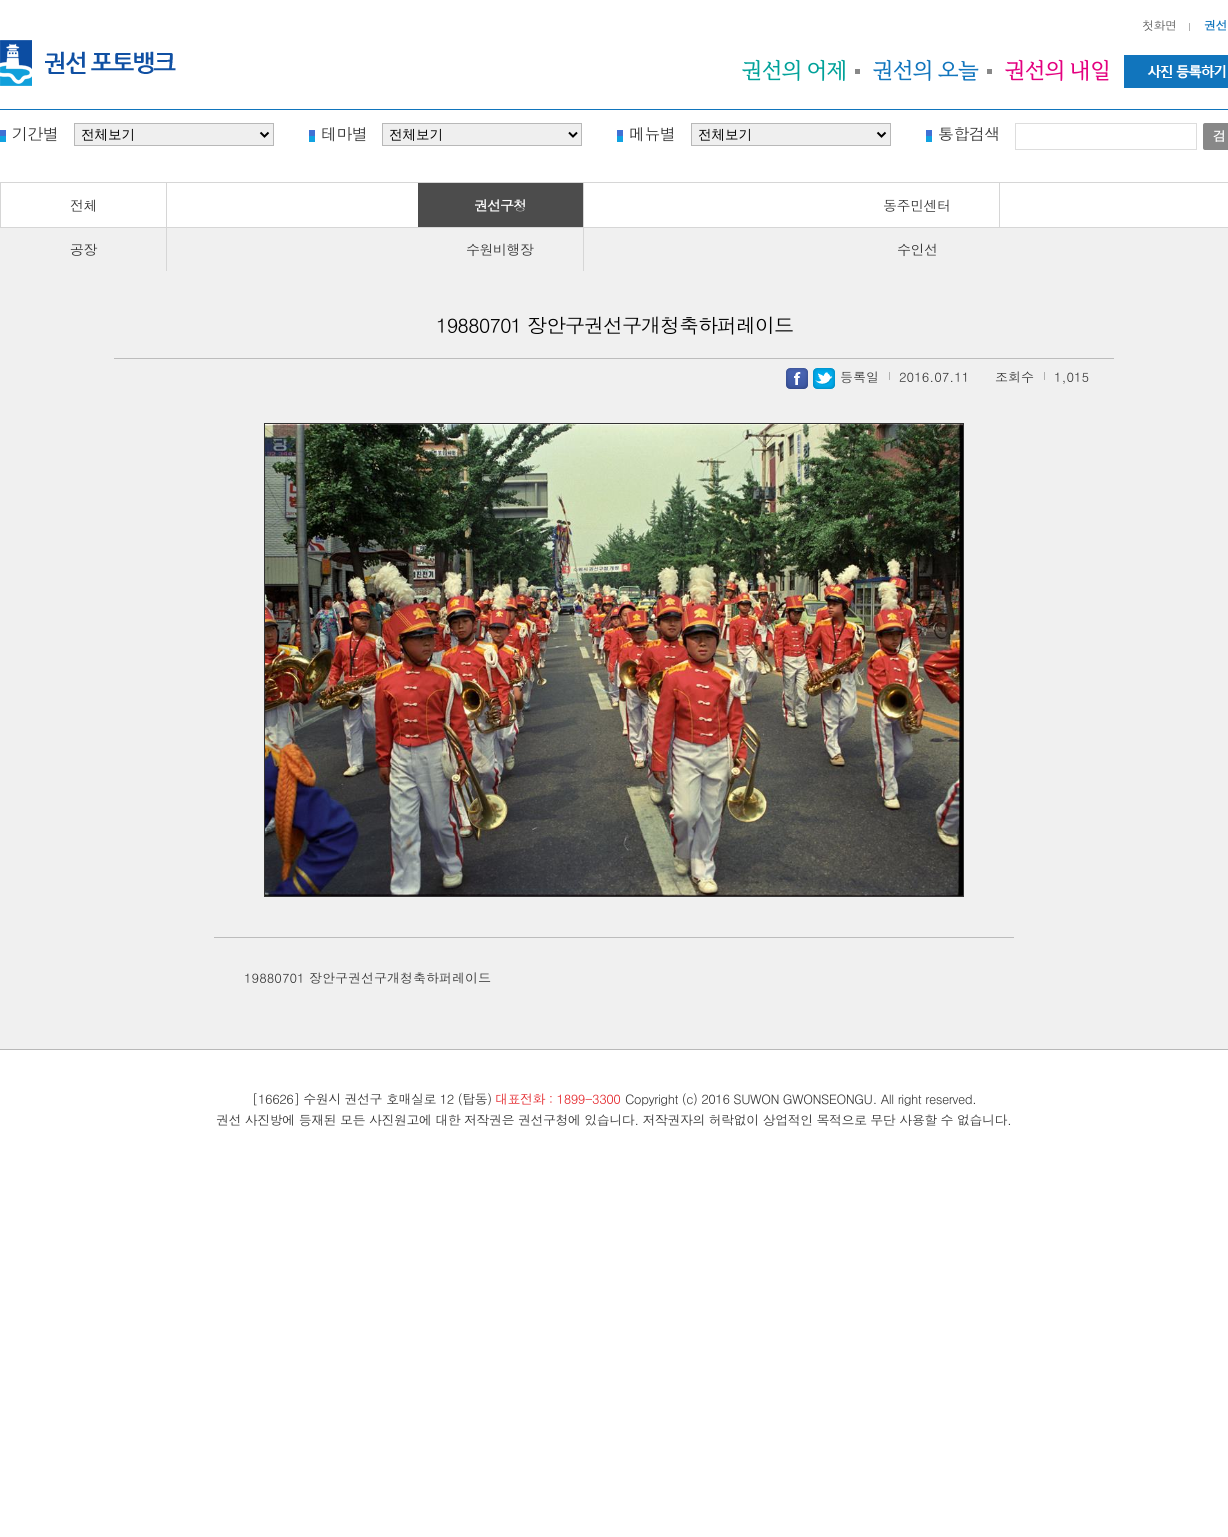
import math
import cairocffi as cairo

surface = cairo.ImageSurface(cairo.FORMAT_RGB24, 1228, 1537)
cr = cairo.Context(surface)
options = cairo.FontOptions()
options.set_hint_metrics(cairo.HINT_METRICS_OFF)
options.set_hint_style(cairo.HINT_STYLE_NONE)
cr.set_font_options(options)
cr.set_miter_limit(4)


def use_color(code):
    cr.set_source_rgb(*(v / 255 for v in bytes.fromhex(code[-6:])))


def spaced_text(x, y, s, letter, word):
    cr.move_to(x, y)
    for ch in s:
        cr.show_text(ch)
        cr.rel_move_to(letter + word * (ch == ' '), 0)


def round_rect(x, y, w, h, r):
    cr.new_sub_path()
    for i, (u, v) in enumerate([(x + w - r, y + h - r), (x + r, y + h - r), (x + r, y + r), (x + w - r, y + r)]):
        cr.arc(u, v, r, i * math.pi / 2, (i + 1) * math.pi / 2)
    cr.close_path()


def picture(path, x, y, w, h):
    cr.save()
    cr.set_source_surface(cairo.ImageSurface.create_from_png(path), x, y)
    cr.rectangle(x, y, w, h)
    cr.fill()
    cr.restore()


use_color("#ffffff")
cr.paint()
use_color("#b0b0b0")
cr.rectangle(1189, 23, 1, 8)
cr.fill()
cr.select_font_face("Dotum")
cr.set_font_size(12)
use_color("#555555")
spaced_text(1142, 30, "첫화면", -0.5, 0)
cr.select_font_face("Dotum", cairo.FONT_SLANT_NORMAL, cairo.FONT_WEIGHT_BOLD)
use_color("#1175bd")
spaced_text(1204, 30, "권선", -0.5, 0)
picture("img1.png", 0, 40, 176, 46)
use_color("#888888")
cr.rectangle(855, 69, 5, 5)
cr.fill()
cr.select_font_face("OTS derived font")
cr.set_font_size(22)
use_color("#00a199")
spaced_text(742, 77, "권선의", -0.5, 0)
spaced_text(807, 77, "어제", -0.5, 0)
use_color("#888888")
cr.rectangle(987, 69, 5, 5)
cr.fill()
use_color("#1175bd")
spaced_text(873, 77, "권선의", -0.5, 0)
spaced_text(938, 77, "오늘", -0.5, 0)
use_color("#e3007f")
spaced_text(1005, 77, "권선의", -0.5, 0)
spaced_text(1070, 77, "내일", -0.5, 0)
picture("img2.png", 1124, 55, 104, 33)
use_color("#1175bd")
cr.rectangle(0, 109, 1228, 1)
cr.fill()
picture("img3.png", 0, 130, 6, 12)
cr.select_font_face("Dotum")
cr.set_font_size(16)
use_color("#333333")
spaced_text(12, 140, "기간별", -0.5, 0)
use_color("#efefef")
cr.rectangle(74.5, 123.5, 199, 22)
cr.fill_preserve()
use_color("#b8b8b8")
cr.set_line_width(1)
cr.stroke()
cr.new_path()
cr.move_to(260.5, 132.5)
cr.line_to(264.5, 136.5)
cr.line_to(268.5, 132.5)
use_color("#000000")
cr.set_line_width(2)
cr.stroke()
cr.select_font_face("WenQuanYi Zen Hei Medium")
cr.set_font_size(13.5)
cr.move_to(81, 139)
cr.show_text("전체보기")
picture("img3.png", 309, 130, 6, 12)
cr.select_font_face("Dotum")
cr.set_font_size(16)
use_color("#333333")
spaced_text(321, 140, "테마별", -0.5, 0)
use_color("#efefef")
cr.rectangle(382.5, 123.5, 199, 22)
cr.fill_preserve()
use_color("#b8b8b8")
cr.set_line_width(1)
cr.stroke()
cr.new_path()
cr.move_to(569, 132.5)
cr.line_to(573, 136.5)
cr.line_to(577, 132.5)
use_color("#000000")
cr.set_line_width(2)
cr.stroke()
cr.select_font_face("WenQuanYi Zen Hei Medium")
cr.set_font_size(13.5)
cr.move_to(389, 139)
cr.show_text("전체보기")
picture("img3.png", 617, 130, 6, 12)
cr.select_font_face("Dotum")
cr.set_font_size(16)
use_color("#333333")
spaced_text(629, 140, "메뉴별", -0.5, 0)
use_color("#efefef")
cr.rectangle(691.5, 123.5, 199, 22)
cr.fill_preserve()
use_color("#b8b8b8")
cr.set_line_width(1)
cr.stroke()
cr.new_path()
cr.move_to(877.5, 132.5)
cr.line_to(881.5, 136.5)
cr.line_to(885.5, 132.5)
use_color("#000000")
cr.set_line_width(2)
cr.stroke()
cr.select_font_face("WenQuanYi Zen Hei Medium")
cr.set_font_size(13.5)
cr.move_to(698, 139)
cr.show_text("전체보기")
picture("img3.png", 926, 130, 6, 12)
cr.select_font_face("Dotum")
cr.set_font_size(16)
use_color("#333333")
spaced_text(938, 140, "통합검색", -0.5, 0)
cr.rectangle(1015.5, 123.5, 181, 26)
use_color("#dddddd")
cr.set_line_width(1)
cr.stroke()
use_color("#888888")
round_rect(1203, 123, 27, 27, 2)
cr.fill()
cr.select_font_face("Dotum", cairo.FONT_SLANT_NORMAL, cairo.FONT_WEIGHT_BOLD)
cr.set_font_size(13)
use_color("#ffffff")
spaced_text(1213, 141, "검", -0.5, 0)
cr.rectangle(0.5, 182.5, 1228, 45)
use_color("#d6d6d6")
cr.stroke()
use_color("#f0f0f0")
cr.rectangle(0, 228, 1228, 821)
cr.fill()
use_color("#d6d6d6")
cr.rectangle(166, 183, 1, 88)
cr.fill()
cr.select_font_face("Dotum")
cr.set_font_size(14)
use_color("#333333")
spaced_text(70, 211, "전체", -0.5, 0)
use_color("#4c4c4c")
cr.rectangle(418, 183, 165, 44)
cr.fill()
use_color("#d6d6d6")
cr.rectangle(583, 183, 1, 88)
cr.fill()
cr.select_font_face("Dotum", cairo.FONT_SLANT_NORMAL, cairo.FONT_WEIGHT_BOLD)
use_color("#ffffff")
spaced_text(474, 211, "권선구청", -1, 0)
use_color("#d6d6d6")
cr.rectangle(999, 183, 1, 44)
cr.fill()
cr.select_font_face("Dotum")
use_color("#333333")
spaced_text(883, 211, "동주민센터", -0.5, 0)
spaced_text(70, 255, "공장", -0.5, 0)
spaced_text(466, 255, "수원비행장", -0.5, 0)
spaced_text(897, 255, "수인선", -0.5, 0)
use_color("#bcbcbc")
cr.rectangle(114, 358, 1000, 1)
cr.fill()
cr.set_font_size(20)
use_color("#000000")
spaced_text(436, 333, "19880701 장안구권선구개청축하퍼레이드", -1, 0)
picture("img4.png", 786, 368, 22, 21)
picture("img5.png", 813, 368, 22, 21)
cr.set_font_size(13)
use_color("#333333")
cr.move_to(840, 382)
cr.show_text("등록일")
cr.move_to(899, 382)
cr.show_text("2016.07.11")
use_color("#b0b0b0")
cr.rectangle(889, 372, 1, 8)
cr.fill()
use_color("#333333")
cr.move_to(995, 382)
cr.show_text("조회수")
cr.move_to(1054, 382)
cr.show_text("1,015")
use_color("#b0b0b0")
cr.rectangle(1044, 372, 1, 8)
cr.fill()
cr.rectangle(264.5, 423.5, 699, 473)
use_color("#333333")
cr.stroke()
picture("img6.png", 265, 424, 698, 472)
use_color("#bcbcbc")
cr.rectangle(214, 937, 800, 1)
cr.fill()
use_color("#333333")
cr.move_to(244, 983)
cr.show_text("19880701 장안구권선구개청축하퍼레이드")
use_color("#b8b8b8")
cr.rectangle(0, 1049, 1228, 1)
cr.fill()
use_color("#333333")
spaced_text(252, 1104, "[16626] 수원시 권선구 호매실로 12 (탑동)", -0.5, 0)
use_color("#e32126")
spaced_text(495, 1104, "대표전화 : 1899-3300", -0.5, 0)
use_color("#333333")
spaced_text(625, 1104, "Copyright (c) 2016 SUWON GWONSEONGU. All right reserved.", -0.5, 0)
spaced_text(216, 1125, "권선 사진방에 등재된 모든 사진원고에 대한 저작권은 권선구청에 있습니다. 저작권자의 허락없이 상업적인 목적으로 무단 사용할 수 없습니다.", -0.5, 0)
surface.write_to_png("result.png")
